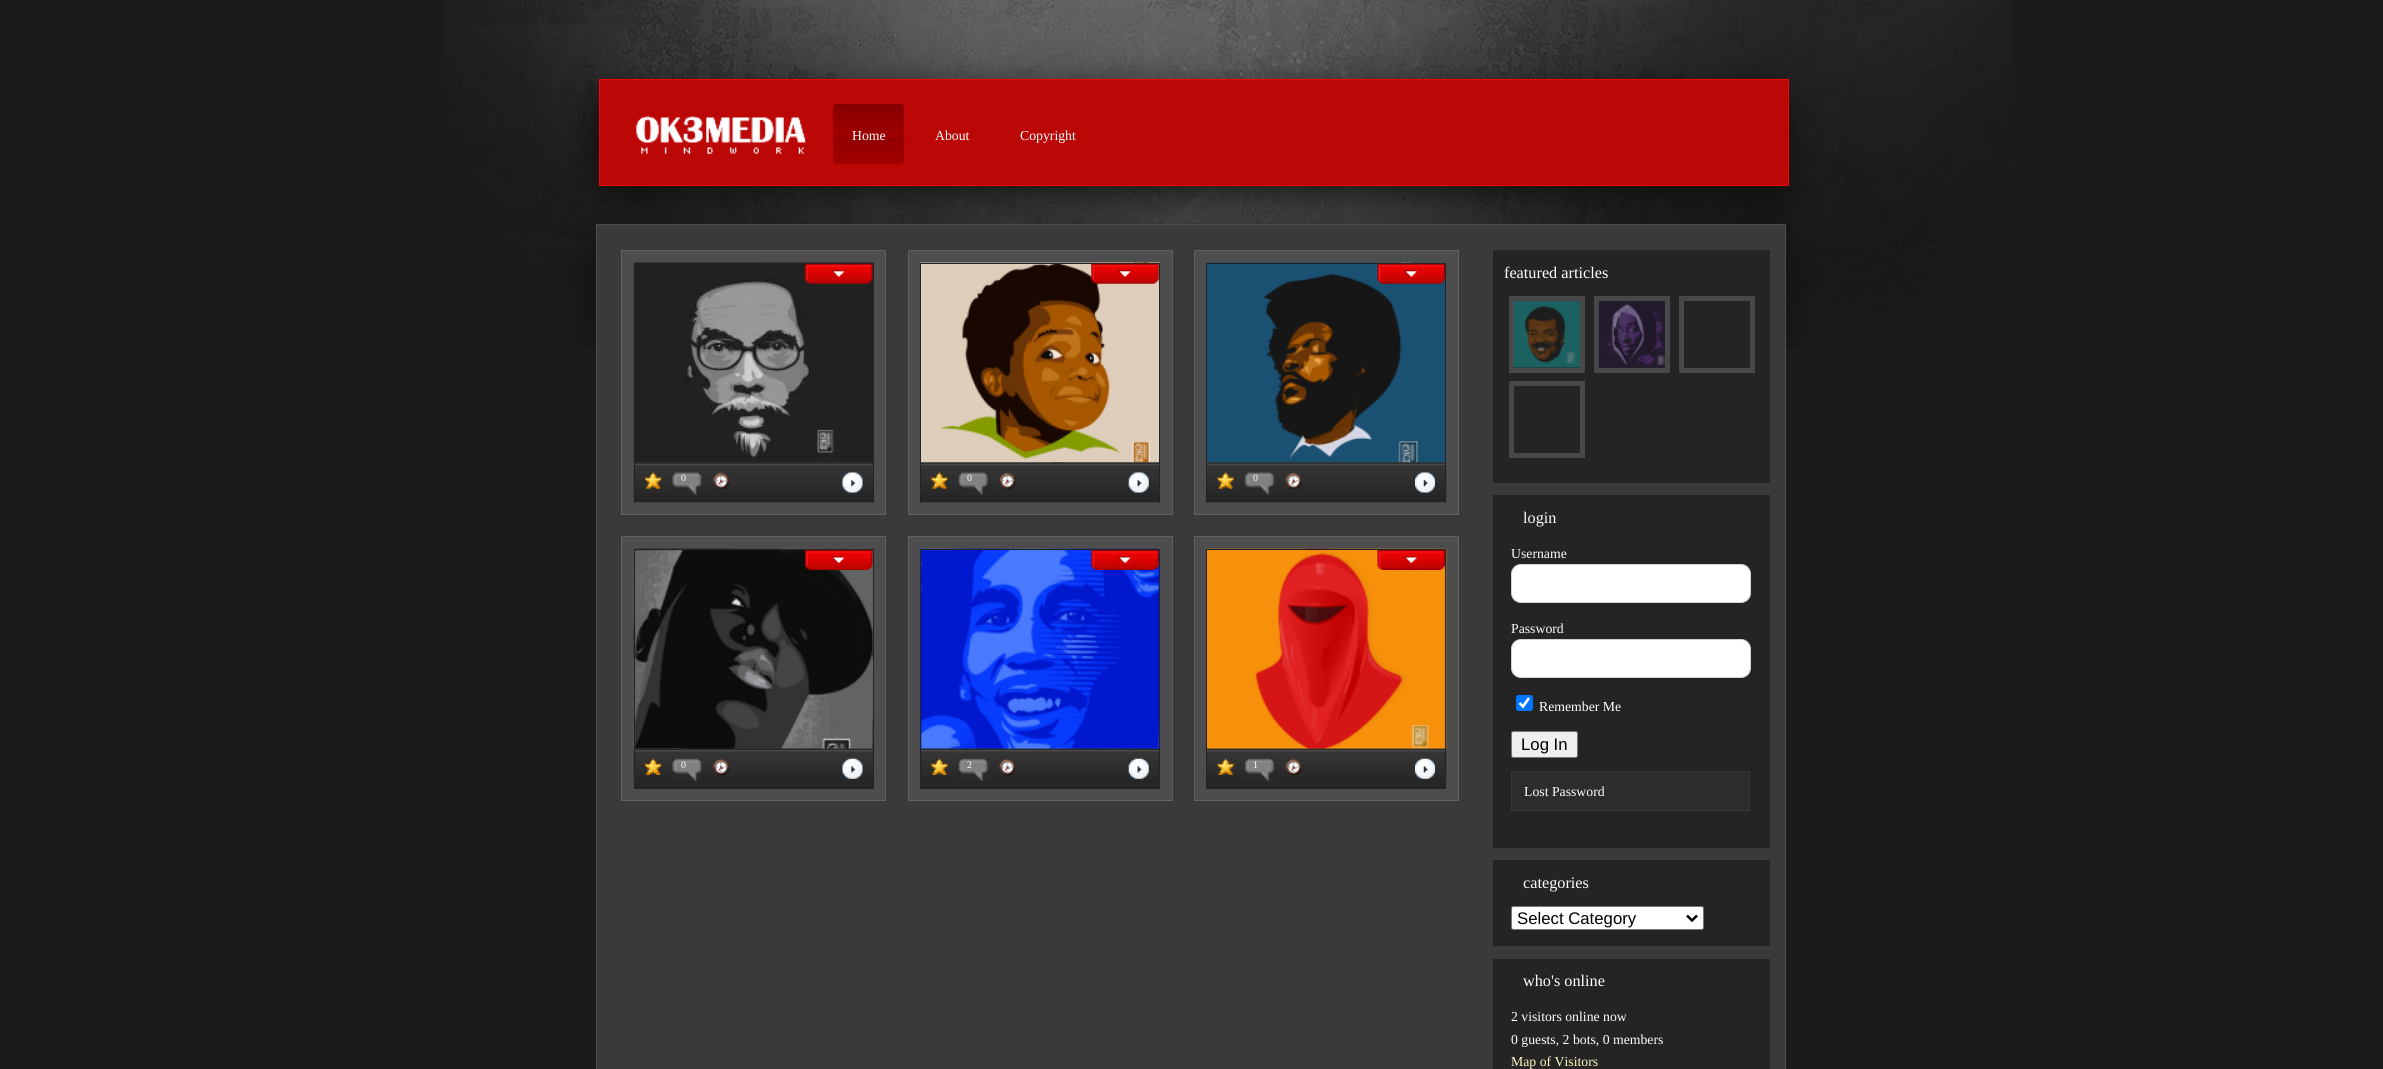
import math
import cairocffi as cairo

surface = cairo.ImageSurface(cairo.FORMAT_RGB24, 2383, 1069)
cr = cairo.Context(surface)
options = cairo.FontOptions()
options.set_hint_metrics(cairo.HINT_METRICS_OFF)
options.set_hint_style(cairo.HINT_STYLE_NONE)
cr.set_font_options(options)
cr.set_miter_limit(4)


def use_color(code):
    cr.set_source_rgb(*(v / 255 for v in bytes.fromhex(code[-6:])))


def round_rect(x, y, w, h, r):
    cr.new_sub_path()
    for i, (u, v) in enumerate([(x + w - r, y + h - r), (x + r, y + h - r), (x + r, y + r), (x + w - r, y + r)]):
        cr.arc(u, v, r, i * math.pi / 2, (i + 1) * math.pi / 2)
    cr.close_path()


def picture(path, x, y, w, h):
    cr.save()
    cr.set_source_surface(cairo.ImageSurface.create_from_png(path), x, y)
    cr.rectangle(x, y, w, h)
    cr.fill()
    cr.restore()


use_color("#1b1b1b")
cr.paint()
picture("img1.png", 444, 0, 1567, 349)
use_color("#bc0707")
cr.rectangle(599.5, 79.5, 1189, 106)
cr.fill_preserve()
use_color("#f30505")
cr.set_line_width(1)
cr.stroke()
picture("img2.png", 636, 116, 171, 38)
picture("img3.png", 881, 103, 23, 69)
picture("img4.png", 832, 103, 49, 69)
picture("img5.png", 832, 137, 80, 34)
picture("img6.png", 901, 137, 10, 28)
cr.select_font_face("Liberation Serif")
cr.set_font_size(13.75)
use_color("#ffffff")
cr.move_to(935, 140)
cr.show_text("About")
cr.move_to(1020, 140)
cr.show_text("Copyright")
cr.move_to(852, 140)
cr.show_text("Home")
use_color("#3a3a3a")
cr.rectangle(596.5, 224.5, 1189, 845)
cr.fill_preserve()
use_color("#4d4d4d")
cr.stroke()
cr.rectangle(621.5, 250.5, 264, 264)
cr.fill_preserve()
use_color("#616161")
cr.stroke()
picture("img7.png", 633, 262, 241, 201)
use_color("#232323")
cr.rectangle(757, 263, 117, 1)
cr.fill()
cr.rectangle(873, 263, 1, 200)
cr.fill()
cr.rectangle(634, 462, 1, 1)
cr.fill()
picture("img8.png", 805, 263, 68, 21)
picture("img9.png", 633, 462, 241, 41)
cr.rectangle(873, 463, 1, 40)
cr.fill()
cr.rectangle(634, 463, 1, 40)
cr.fill()
picture("img10.png", 645, 472, 17, 17)
picture("img11.png", 672, 472, 30, 23)
cr.set_font_size(10)
use_color("#ffffff")
cr.move_to(681, 481)
cr.show_text("0")
picture("img12.png", 712, 472, 17, 17)
picture("img13.png", 842, 472, 21, 21)
use_color("#4d4d4d")
cr.rectangle(908.5, 250.5, 264, 264)
cr.fill_preserve()
use_color("#616161")
cr.stroke()
picture("img14.png", 920, 262, 240, 201)
use_color("#232323")
cr.rectangle(920, 263, 240, 1)
cr.fill()
cr.rectangle(1159, 263, 1, 200)
cr.fill()
cr.rectangle(920, 263, 1, 200)
cr.fill()
picture("img15.png", 1091, 263, 68, 21)
picture("img16.png", 920, 462, 240, 41)
cr.rectangle(1159, 463, 1, 40)
cr.fill()
cr.rectangle(920, 463, 1, 40)
cr.fill()
picture("img17.png", 931, 472, 17, 17)
picture("img18.png", 958, 472, 30, 23)
use_color("#ffffff")
cr.move_to(967, 481)
cr.show_text("0")
picture("img19.png", 998, 472, 18, 17)
picture("img20.png", 1128, 472, 21, 21)
use_color("#4d4d4d")
cr.rectangle(1194.5, 250.5, 264, 264)
cr.fill_preserve()
use_color("#616161")
cr.stroke()
picture("img21.png", 1206, 262, 241, 201)
use_color("#232323")
cr.rectangle(1206, 263, 240, 1)
cr.fill()
cr.rectangle(1445, 263, 1, 200)
cr.fill()
cr.rectangle(1206, 263, 1, 200)
cr.fill()
picture("img22.png", 1377, 263, 68, 21)
picture("img23.png", 1206, 462, 241, 41)
cr.rectangle(1445, 463, 1, 40)
cr.fill()
cr.rectangle(1206, 463, 1, 40)
cr.fill()
picture("img24.png", 1217, 472, 17, 17)
picture("img25.png", 1245, 472, 29, 23)
use_color("#ffffff")
cr.move_to(1253, 481)
cr.show_text("0")
picture("img26.png", 1285, 472, 17, 17)
picture("img27.png", 1415, 472, 20, 21)
use_color("#4d4d4d")
cr.rectangle(621.5, 536.5, 264, 264)
cr.fill_preserve()
use_color("#616161")
cr.stroke()
picture("img28.png", 633, 548, 241, 201)
use_color("#232323")
cr.rectangle(634, 549, 240, 1)
cr.fill()
cr.rectangle(873, 549, 1, 200)
cr.fill()
cr.rectangle(634, 549, 1, 200)
cr.fill()
picture("img29.png", 805, 550, 68, 20)
picture("img30.png", 633, 748, 241, 41)
cr.rectangle(873, 749, 1, 40)
cr.fill()
cr.rectangle(634, 788, 240, 1)
cr.fill()
cr.rectangle(634, 749, 1, 40)
cr.fill()
picture("img31.png", 645, 758, 17, 17)
picture("img32.png", 672, 758, 30, 24)
use_color("#ffffff")
cr.move_to(681, 768)
cr.show_text("0")
picture("img33.png", 712, 758, 17, 18)
picture("img34.png", 842, 758, 21, 21)
use_color("#4d4d4d")
cr.rectangle(908.5, 536.5, 264, 264)
cr.fill_preserve()
use_color("#616161")
cr.stroke()
picture("img35.png", 920, 548, 240, 201)
use_color("#232323")
cr.rectangle(920, 549, 240, 1)
cr.fill()
cr.rectangle(1159, 549, 1, 200)
cr.fill()
cr.rectangle(920, 549, 1, 200)
cr.fill()
picture("img36.png", 1091, 550, 68, 20)
picture("img37.png", 920, 748, 240, 40)
cr.rectangle(1159, 749, 1, 40)
cr.fill()
cr.rectangle(920, 788, 240, 1)
cr.fill()
cr.rectangle(920, 749, 1, 40)
cr.fill()
picture("img38.png", 931, 758, 17, 17)
picture("img39.png", 958, 758, 30, 24)
use_color("#ffffff")
cr.move_to(967, 768)
cr.show_text("2")
picture("img40.png", 998, 758, 18, 18)
picture("img41.png", 1128, 758, 21, 21)
use_color("#4d4d4d")
cr.rectangle(1194.5, 536.5, 264, 264)
cr.fill_preserve()
use_color("#616161")
cr.stroke()
picture("img42.png", 1206, 548, 241, 201)
use_color("#232323")
cr.rectangle(1206, 549, 240, 1)
cr.fill()
cr.rectangle(1445, 549, 1, 200)
cr.fill()
cr.rectangle(1206, 549, 1, 200)
cr.fill()
picture("img43.png", 1377, 550, 68, 20)
picture("img44.png", 1206, 748, 241, 41)
cr.rectangle(1445, 749, 1, 40)
cr.fill()
cr.rectangle(1206, 788, 240, 1)
cr.fill()
cr.rectangle(1206, 749, 1, 40)
cr.fill()
picture("img45.png", 1217, 758, 17, 17)
picture("img46.png", 1245, 758, 29, 24)
use_color("#ffffff")
cr.move_to(1253, 768)
cr.show_text("1")
picture("img47.png", 1285, 758, 17, 18)
picture("img48.png", 1415, 758, 20, 21)
use_color("#242424")
cr.rectangle(1493, 250, 277, 233)
cr.fill()
cr.set_font_size(16.25)
use_color("#ffffff")
cr.move_to(1504, 278)
cr.show_text("featured articles")
cr.rectangle(1511.5, 298.5, 71, 72)
use_color("#484848")
cr.set_line_width(5)
cr.stroke()
picture("img49.png", 1513, 301, 67, 67)
cr.rectangle(1596.5, 298.5, 71, 72)
cr.stroke()
picture("img50.png", 1598, 301, 67, 67)
cr.rectangle(1681.5, 298.5, 71, 72)
cr.stroke()
cr.rectangle(1511.5, 383.5, 71, 72)
cr.stroke()
use_color("#242424")
cr.rectangle(1493, 495, 277, 353)
cr.fill()
use_color("#ffffff")
cr.move_to(1523, 523)
cr.show_text("login")
cr.set_font_size(13.75)
cr.move_to(1511, 558)
cr.show_text("Username")
round_rect(1511.5, 564.5, 239, 38, 9.5)
cr.fill_preserve()
use_color("#d4d2d2")
cr.set_line_width(1)
cr.stroke()
use_color("#ffffff")
cr.move_to(1511, 633)
cr.show_text("Password")
round_rect(1511.5, 639.5, 239, 38, 9.5)
cr.fill_preserve()
use_color("#d4d2d2")
cr.stroke()
use_color("#0075ff")
round_rect(1516, 695, 17, 16, 2.5)
cr.fill()
cr.new_path()
cr.move_to(1519.5, 703)
cr.line_to(1523, 706.5)
cr.line_to(1529, 698)
use_color("#ffffff")
cr.set_line_width(2.6)
cr.stroke()
cr.move_to(1539, 711)
cr.show_text("Remember Me")
use_color("#efefef")
round_rect(1511.5, 731.5, 66, 26, 2)
cr.fill_preserve()
use_color("#767676")
cr.set_line_width(1)
cr.stroke()
cr.select_font_face("Liberation Sans")
cr.set_font_size(16.75)
use_color("#000000")
cr.move_to(1521, 750)
cr.show_text("Log In")
use_color("#2c2c2c")
cr.rectangle(1511.5, 771.5, 238, 39)
cr.fill_preserve()
use_color("#353535")
cr.stroke()
cr.select_font_face("Liberation Serif")
cr.set_font_size(13.75)
use_color("#ffffff")
cr.move_to(1524, 796)
cr.show_text("Lost Password")
use_color("#242424")
cr.rectangle(1493, 860, 277, 86)
cr.fill()
cr.set_font_size(16.25)
use_color("#ffffff")
cr.move_to(1523, 888)
cr.show_text("categories")
round_rect(1511.5, 906.5, 192, 23, 2)
cr.fill_preserve()
use_color("#767676")
cr.stroke()
cr.new_path()
cr.move_to(1687, 915.5)
cr.line_to(1692, 920.5)
cr.line_to(1697, 915.5)
use_color("#000000")
cr.set_line_width(2.5)
cr.stroke()
cr.select_font_face("Liberation Sans")
cr.set_font_size(16.75)
cr.move_to(1517, 924)
cr.show_text("Select Category")
use_color("#242424")
cr.rectangle(1493, 959, 277, 110)
cr.fill()
cr.select_font_face("Liberation Serif")
cr.set_font_size(16.25)
use_color("#ffffff")
cr.move_to(1523, 986)
cr.show_text("who's online")
cr.set_font_size(13.75)
cr.move_to(1511, 1021)
cr.show_text("2 visitors online now")
cr.move_to(1511, 1044)
cr.show_text("0 guests, 2 bots, 0 members")
use_color("#fff7c0")
cr.move_to(1511, 1066)
cr.show_text("Map of Visitors")
surface.write_to_png("result.png")
